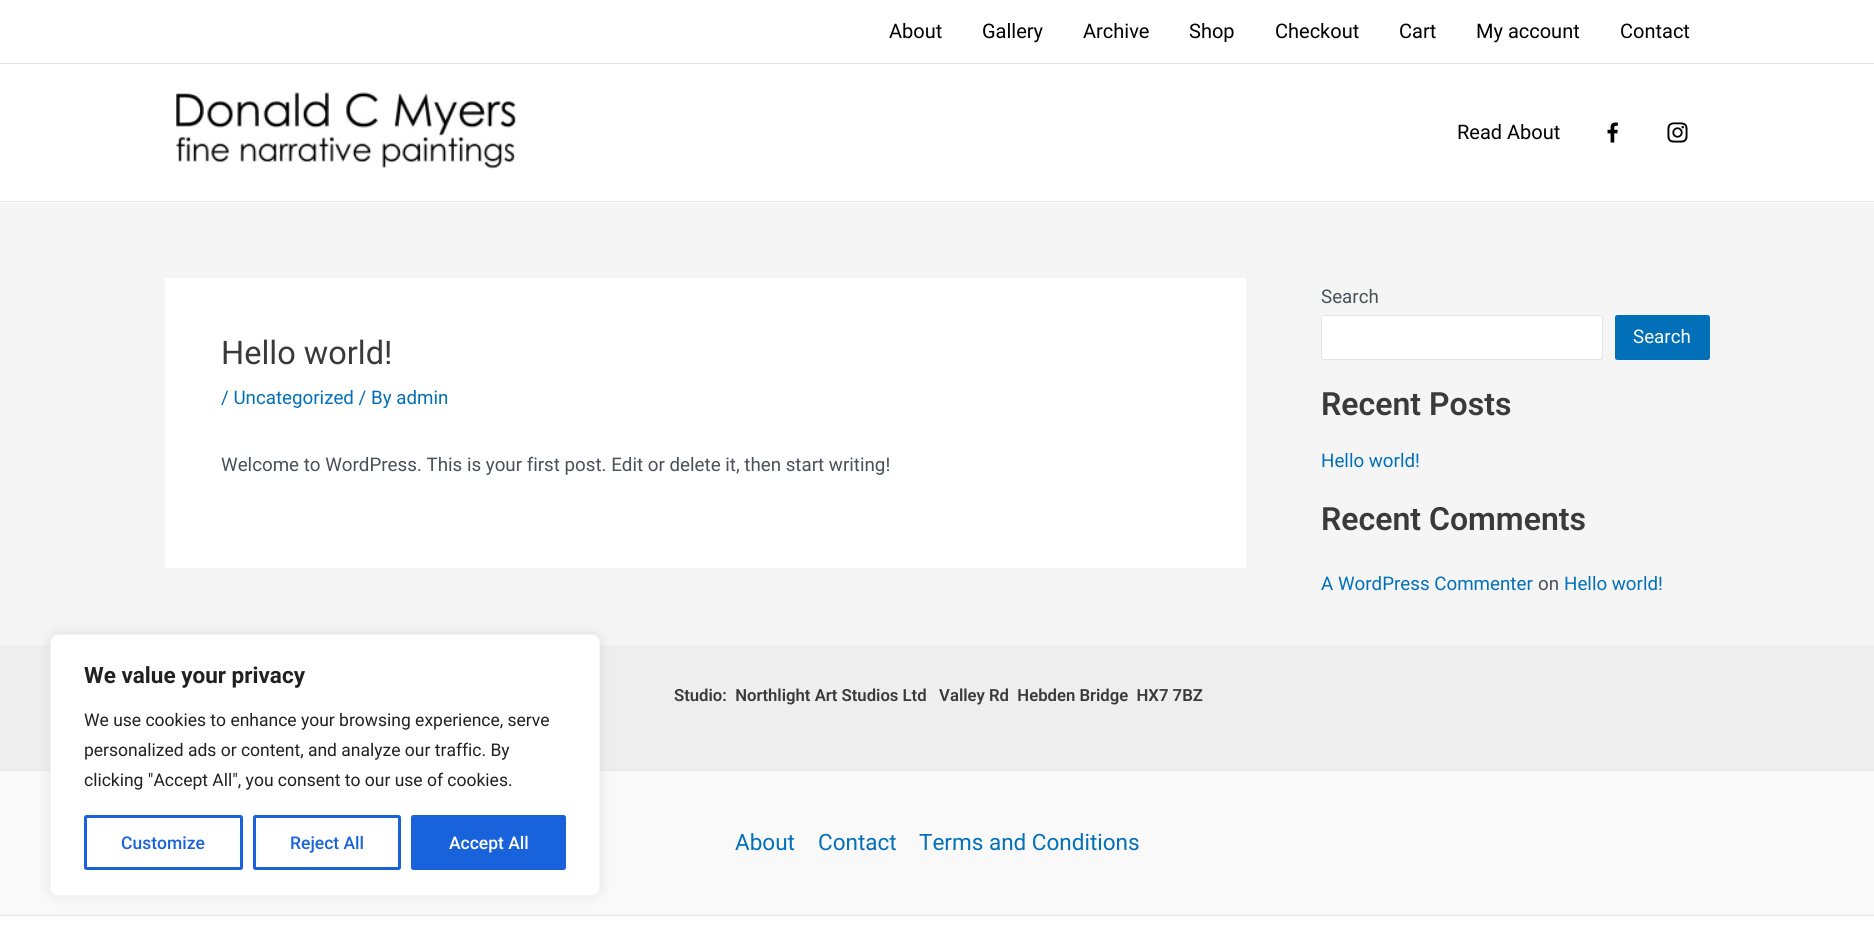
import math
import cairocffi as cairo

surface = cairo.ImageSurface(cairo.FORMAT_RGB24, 1874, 946)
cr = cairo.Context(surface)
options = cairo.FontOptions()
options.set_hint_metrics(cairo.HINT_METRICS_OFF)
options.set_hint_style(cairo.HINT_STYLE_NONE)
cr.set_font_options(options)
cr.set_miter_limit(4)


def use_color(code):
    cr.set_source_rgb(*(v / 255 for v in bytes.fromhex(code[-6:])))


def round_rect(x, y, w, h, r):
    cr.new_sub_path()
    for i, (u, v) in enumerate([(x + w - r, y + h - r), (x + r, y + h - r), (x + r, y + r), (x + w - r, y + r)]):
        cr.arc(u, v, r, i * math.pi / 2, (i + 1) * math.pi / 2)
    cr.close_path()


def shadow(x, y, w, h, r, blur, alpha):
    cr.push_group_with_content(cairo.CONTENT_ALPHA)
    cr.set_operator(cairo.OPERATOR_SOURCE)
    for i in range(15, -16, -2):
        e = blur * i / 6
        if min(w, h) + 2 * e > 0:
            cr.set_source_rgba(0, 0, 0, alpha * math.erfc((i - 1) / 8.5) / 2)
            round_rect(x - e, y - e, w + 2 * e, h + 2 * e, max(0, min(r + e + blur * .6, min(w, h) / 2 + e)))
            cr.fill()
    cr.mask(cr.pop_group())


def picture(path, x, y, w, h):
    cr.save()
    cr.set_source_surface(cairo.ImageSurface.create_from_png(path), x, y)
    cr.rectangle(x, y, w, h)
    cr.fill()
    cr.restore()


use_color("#f5f5f5")
cr.paint()
use_color("#ffffff")
cr.rectangle(0, 0, 1874, 63)
cr.fill()
use_color("#e5e5e5")
cr.rectangle(0, 63, 1874, 1)
cr.fill()
cr.select_font_face("Roboto")
cr.set_font_size(20)
use_color("#000000")
cr.move_to(889, 38)
cr.show_text("About")
cr.move_to(982, 38)
cr.show_text("Gallery")
cr.move_to(1083, 38)
cr.show_text("Archive")
cr.move_to(1189, 38)
cr.show_text("Shop")
cr.move_to(1275, 38)
cr.show_text("Checkout")
cr.move_to(1399, 38)
cr.show_text("Cart")
cr.move_to(1476, 38)
cr.show_text("My account")
cr.move_to(1620, 38)
cr.show_text("Contact")
use_color("#ffffff")
cr.rectangle(0, 64, 1874, 139)
cr.fill()
use_color("#e5e5e5")
cr.rectangle(0, 201, 1874, 1)
cr.fill()
picture("img1.png", 175, 92, 342, 77)
use_color("#000000")
cr.move_to(1457, 139)
cr.show_text("Read About")
picture("img2.png", 1607, 122, 11, 21)
picture("img3.png", 1667, 122, 21, 21)
use_color("#ffffff")
cr.rectangle(165, 278, 1081, 290)
cr.fill()
cr.set_font_size(32.5)
use_color("#3a3a3a")
cr.move_to(221, 364)
cr.show_text("Hello world!")
cr.set_font_size(18.75)
use_color("#0170b9")
cr.move_to(221, 404)
cr.show_text("/ Uncategorized / By admin")
use_color("#4b4f58")
cr.move_to(221, 471)
cr.show_text("Welcome to WordPress. This is your first post. Edit or delete it, then start writing!")
cr.move_to(1321, 303)
cr.show_text("Search")
use_color("#ffffff")
round_rect(1321.5, 315.5, 281, 44, 2)
cr.fill_preserve()
use_color("#e5e5e5")
cr.set_line_width(1)
cr.stroke()
use_color("#0170b9")
round_rect(1615, 315, 95, 45, 2.5)
cr.fill()
use_color("#ffffff")
cr.move_to(1633, 343)
cr.show_text("Search")
cr.select_font_face("Roboto SemiBold")
cr.set_font_size(32)
use_color("#3a3a3a")
cr.move_to(1321, 415)
cr.show_text("Recent Posts")
cr.select_font_face("Roboto")
cr.set_font_size(18.75)
use_color("#0170b9")
cr.move_to(1321, 467)
cr.show_text("Hello world!")
cr.select_font_face("Roboto SemiBold")
cr.set_font_size(32)
use_color("#3a3a3a")
cr.move_to(1321, 530)
cr.show_text("Recent Comments")
cr.select_font_face("Roboto")
cr.set_font_size(18.75)
use_color("#0170b9")
cr.move_to(1321, 590)
cr.show_text("A WordPress Commenter")
use_color("#4b4f58")
cr.move_to(1538, 590)
cr.show_text("on")
use_color("#0170b9")
cr.move_to(1564, 590)
cr.show_text("Hello world!")
use_color("#eeeeee")
cr.rectangle(0, 645, 1874, 125)
cr.fill()
cr.select_font_face("Roboto SemiBold")
cr.set_font_size(16.7)
use_color("#3a3a3a")
cr.move_to(674, 701)
cr.show_text("Studio:  Northlight Art Studios Ltd   Valley Rd  Hebden Bridge  HX7 7BZ")
use_color("#f9f9f9")
cr.rectangle(0, 771, 1874, 144)
cr.fill()
use_color("#e5e5e5")
cr.rectangle(0, 770, 1874, 1)
cr.fill()
cr.select_font_face("Roboto")
cr.set_font_size(22.5)
use_color("#0170b9")
cr.move_to(735, 850)
cr.show_text("About")
cr.move_to(818, 850)
cr.show_text("Contact")
cr.move_to(919, 850)
cr.show_text("Terms and Conditions")
use_color("#ffffff")
cr.rectangle(0, 916, 1874, 30)
cr.fill()
use_color("#e5e5e5")
cr.rectangle(0, 915, 1874, 1)
cr.fill()
use_color("#acabab")
shadow(50, 633, 550, 262, 8, 6, 0.3)
use_color("#ffffff")
round_rect(50.5, 634.5, 549, 261, 7.5)
cr.fill_preserve()
use_color("#f4f4f4")
cr.stroke()
cr.select_font_face("Roboto", cairo.FONT_SLANT_NORMAL, cairo.FONT_WEIGHT_BOLD)
use_color("#212121")
cr.move_to(84, 683)
cr.show_text("We value your privacy")
cr.select_font_face("Roboto")
cr.set_font_size(17.5)
cr.move_to(84, 726)
cr.show_text("We use cookies to enhance your browsing experience, serve")
cr.move_to(84, 756)
cr.show_text("personalized ads or content, and analyze our traffic. By")
cr.move_to(84, 786)
cr.show_text("clicking \"Accept All\", you consent to our use of cookies.")
round_rect(85.5, 816.5, 156, 52, 1)
use_color("#1863dc")
cr.set_line_width(3)
cr.stroke()
cr.select_font_face("Roboto Medium")
cr.move_to(121, 849)
cr.show_text("Customize")
round_rect(254.5, 816.5, 145, 52, 1)
cr.stroke()
cr.move_to(290, 849)
cr.show_text("Reject All")
round_rect(412.5, 816.5, 152, 52, 1)
cr.fill_preserve()
cr.stroke()
use_color("#ffffff")
cr.move_to(449, 849)
cr.show_text("Accept All")
surface.write_to_png("result.png")
